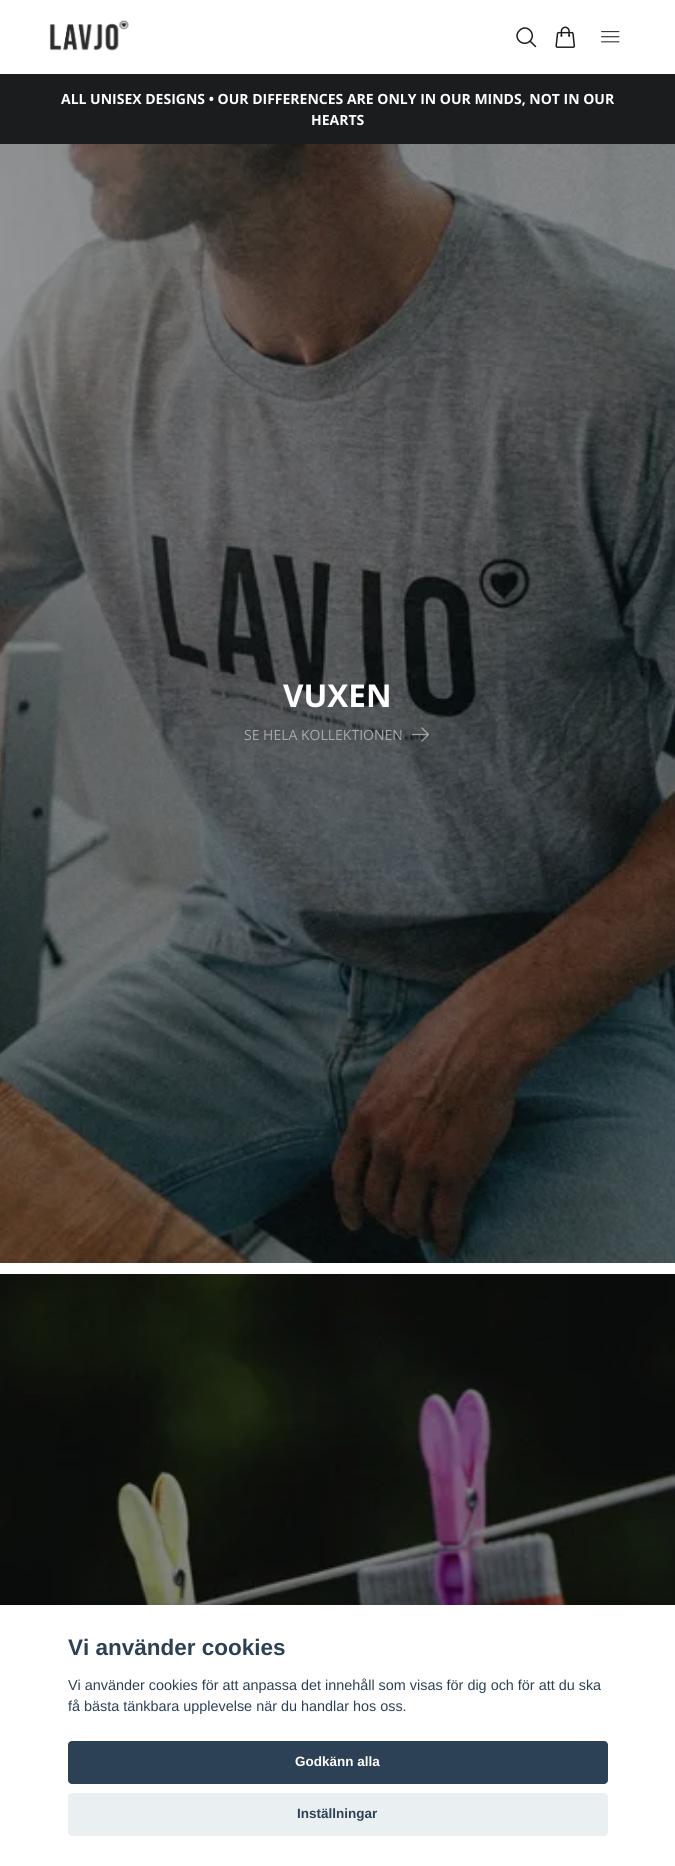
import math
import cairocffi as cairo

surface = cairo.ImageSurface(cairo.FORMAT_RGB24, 675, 1866)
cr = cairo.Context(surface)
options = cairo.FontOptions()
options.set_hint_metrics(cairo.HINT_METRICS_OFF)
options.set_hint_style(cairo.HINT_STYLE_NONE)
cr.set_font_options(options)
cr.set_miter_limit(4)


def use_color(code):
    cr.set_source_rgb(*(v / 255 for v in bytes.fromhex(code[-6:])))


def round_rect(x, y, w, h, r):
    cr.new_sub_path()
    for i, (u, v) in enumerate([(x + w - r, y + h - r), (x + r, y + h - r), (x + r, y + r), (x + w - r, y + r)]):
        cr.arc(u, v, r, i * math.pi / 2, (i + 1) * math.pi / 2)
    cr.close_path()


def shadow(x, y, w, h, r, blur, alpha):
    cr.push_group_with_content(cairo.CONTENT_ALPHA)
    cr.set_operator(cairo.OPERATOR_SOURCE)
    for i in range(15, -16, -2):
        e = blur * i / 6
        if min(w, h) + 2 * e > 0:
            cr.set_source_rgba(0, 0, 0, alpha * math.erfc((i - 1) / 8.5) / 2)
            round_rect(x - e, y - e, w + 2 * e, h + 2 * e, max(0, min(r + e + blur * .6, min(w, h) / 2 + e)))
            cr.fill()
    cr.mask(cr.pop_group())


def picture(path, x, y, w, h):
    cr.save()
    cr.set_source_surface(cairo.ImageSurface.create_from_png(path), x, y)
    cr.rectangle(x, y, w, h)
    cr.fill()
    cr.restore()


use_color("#ffffff")
cr.paint()
picture("img1.png", 49, 20, 80, 31)
cr.new_path()
cr.move_to(535.5, 46.5)
cr.line_to(530, 41)
cr.move_to(530, 41)
cr.curve_to(537, 34, 526.5, 23, 519.5, 30.5)
cr.curve_to(512, 37.5, 523, 48, 530, 41)
cr.close_path()
use_color("#1a1c1e")
cr.set_line_width(1.5)
cr.set_line_cap(cairo.LINE_CAP_ROUND)
cr.set_line_join(cairo.LINE_JOIN_ROUND)
cr.stroke()
picture("img2.png", 555, 26, 20, 22)
picture("img3.png", 601, 31, 19, 12)
cr.rectangle(0, 74, 675, 70)
cr.fill()
cr.select_font_face("Open Sans", cairo.FONT_SLANT_NORMAL, cairo.FONT_WEIGHT_BOLD)
cr.set_font_size(14)
use_color("#ffffff")
cr.move_to(61, 104)
cr.show_text("ALL UNISEX DESIGNS • OUR DIFFERENCES ARE ONLY IN OUR MINDS, NOT IN OUR")
cr.move_to(311, 125)
cr.show_text("HEARTS")
picture("img4.png", 0, 144, 675, 1119)
cr.set_font_size(31.5)
cr.move_to(283, 707)
cr.show_text("VUXEN")
cr.select_font_face("Open Sans")
cr.set_font_size(14)
use_color("#a7a9ab")
cr.move_to(244, 740)
cr.show_text("SE HELA KOLLEKTIONEN")
cr.new_path()
cr.move_to(422, 728)
cr.line_to(428.5, 734.5)
cr.move_to(428.5, 734.5)
cr.line_to(422, 741)
cr.move_to(428.5, 734.5)
cr.line_to(412.5, 734.5)
cr.set_source_rgba(1, 1, 1, 0.5)
cr.set_line_width(1.3)
cr.stroke()
picture("img5.png", 0, 1274, 675, 331)
use_color("#020203")
shadow(0, 1615, 675, 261, 0, 15, 0.28)
use_color("#ffffff")
cr.rectangle(0, 1605, 675, 261)
cr.fill()
cr.select_font_face("Liberation Sans", cairo.FONT_SLANT_NORMAL, cairo.FONT_WEIGHT_BOLD)
cr.set_font_size(22.5)
use_color("#2d4156")
cr.move_to(68, 1655)
cr.show_text("Vi använder cookies")
cr.select_font_face("Liberation Sans")
cr.set_font_size(14.4)
cr.move_to(68, 1690)
cr.show_text("Vi använder cookies för att anpassa det innehåll som visas för dig och för att du ska")
cr.move_to(68, 1711)
cr.show_text("få bästa tänkbara upplevelse när du handlar hos oss.")
round_rect(68, 1741, 540, 43, 4)
cr.fill()
cr.select_font_face("Liberation Sans", cairo.FONT_SLANT_NORMAL, cairo.FONT_WEIGHT_BOLD)
cr.set_font_size(13.5)
use_color("#ffffff")
cr.move_to(295, 1766)
cr.show_text("Godkänn alla")
use_color("#eaeff2")
round_rect(68, 1793, 540, 43, 4)
cr.fill()
use_color("#2d4156")
cr.move_to(297, 1818)
cr.show_text("Inställningar")
surface.write_to_png("result.png")
